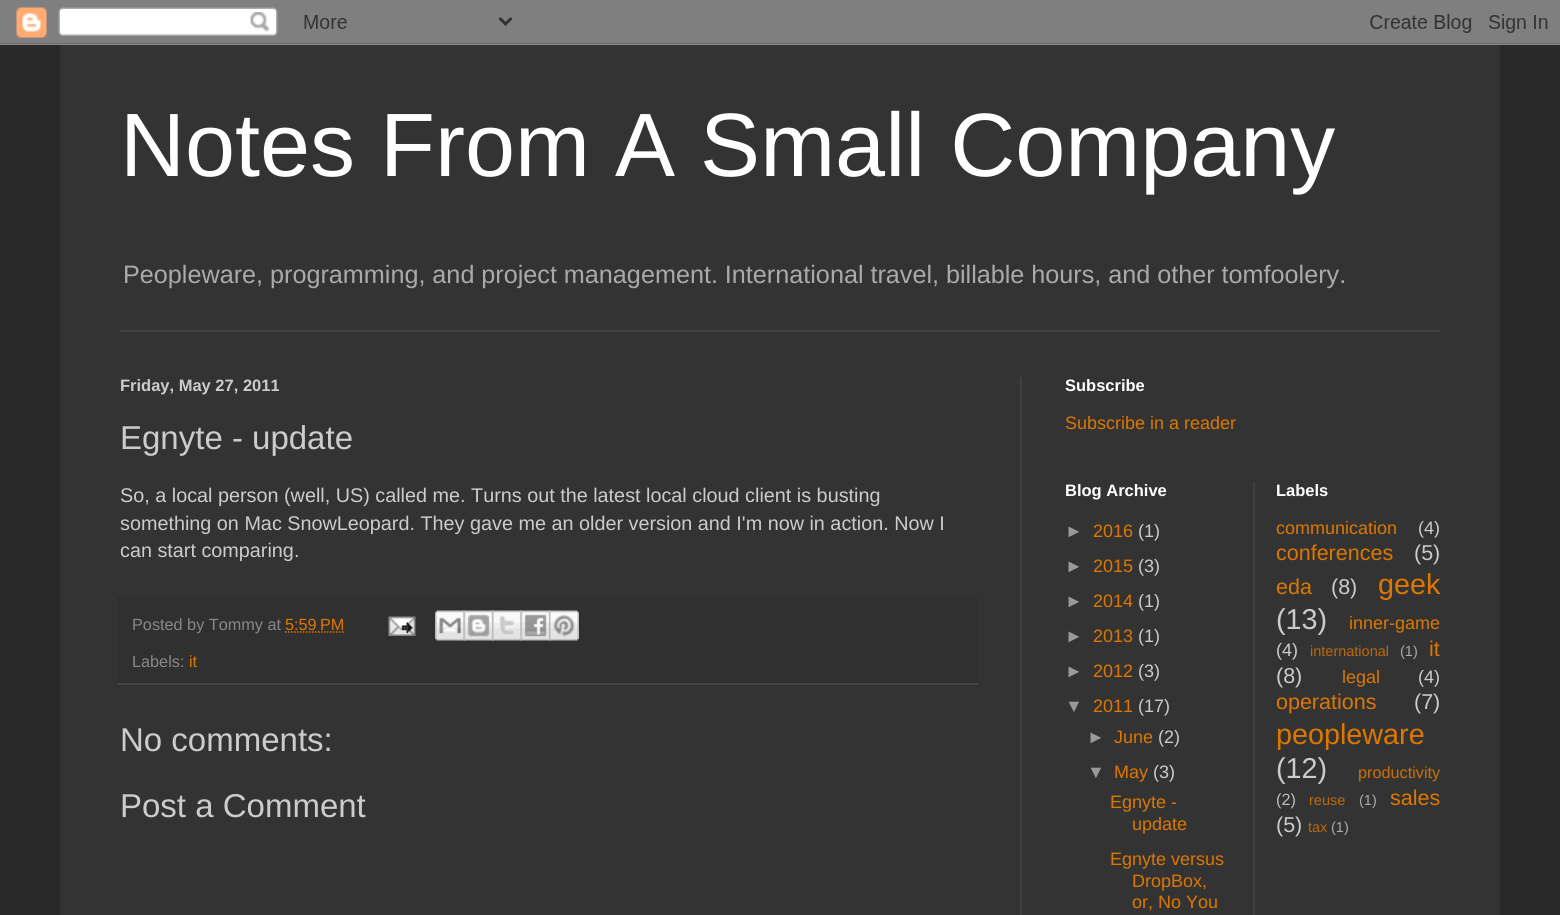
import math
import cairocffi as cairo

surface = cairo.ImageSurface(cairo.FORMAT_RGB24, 1560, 915)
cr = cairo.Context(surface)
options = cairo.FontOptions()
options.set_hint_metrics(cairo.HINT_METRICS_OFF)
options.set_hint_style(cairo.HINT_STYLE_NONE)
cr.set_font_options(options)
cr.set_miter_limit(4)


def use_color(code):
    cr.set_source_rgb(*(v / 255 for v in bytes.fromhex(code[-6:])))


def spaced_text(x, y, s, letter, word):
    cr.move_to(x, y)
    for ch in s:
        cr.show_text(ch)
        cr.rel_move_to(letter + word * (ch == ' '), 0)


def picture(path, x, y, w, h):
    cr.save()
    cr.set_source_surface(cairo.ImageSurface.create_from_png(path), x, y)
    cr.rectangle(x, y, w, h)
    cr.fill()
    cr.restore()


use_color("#292929")
cr.paint()
picture("img1.png", 0, 0, 1560, 45)
use_color("#333333")
cr.rectangle(60, 45, 1440, 870)
cr.fill()
cr.select_font_face("Liberation Sans")
cr.set_font_size(90)
use_color("#ffffff")
cr.move_to(120, 176)
cr.show_text("Notes From A Small Company")
cr.set_font_size(25.2)
use_color("#aaaaaa")
spaced_text(123, 283, "Peopleware, programming, and project management. International travel, billable hours, and other tomfoolery.", 0, -0.1)
use_color("#404040")
cr.rectangle(120, 330, 1320, 2)
cr.fill()
cr.rectangle(1020, 377, 2, 538)
cr.fill()
cr.select_font_face("Liberation Sans", cairo.FONT_SLANT_NORMAL, cairo.FONT_WEIGHT_BOLD)
cr.set_font_size(16.5)
use_color("#cccccc")
cr.move_to(120, 391)
cr.show_text("Friday, May 27, 2011")
cr.select_font_face("Liberation Sans")
cr.set_font_size(33)
cr.move_to(120, 449)
cr.show_text("Egnyte - update")
cr.set_font_size(19.8)
cr.move_to(120, 502)
cr.show_text("So, a local person (well, US) called me. Turns out the latest local cloud client is busting")
cr.move_to(120, 530)
cr.show_text("something on Mac SnowLeopard. They gave me an older version and I'm now in action. Now I")
cr.move_to(120, 557)
cr.show_text("can start comparing.")
use_color("#303030")
cr.rectangle(117, 596, 861, 87)
cr.fill()
use_color("#444444")
cr.rectangle(117, 683, 861, 2)
cr.fill()
cr.set_font_size(16.25)
use_color("#888888")
cr.move_to(132, 630)
cr.show_text("Posted by Tommy at")
use_color("#dd7700")
cr.move_to(285, 630)
cr.show_text("5:59 PM")
cr.new_path()
cr.move_to(285, 632)
cr.line_to(344, 632)
cr.set_line_width(1.5)
cr.set_dash([1.5, 1.5])
cr.stroke()
picture("img2.png", 388, 616, 28, 20)
picture("img3.png", 435, 610, 30, 31)
picture("img4.png", 463, 610, 31, 31)
picture("img5.png", 492, 610, 30, 31)
picture("img6.png", 520, 610, 31, 31)
picture("img7.png", 549, 610, 30, 31)
use_color("#888888")
cr.move_to(132, 667)
cr.show_text("Labels:")
use_color("#dd7700")
cr.move_to(189, 667)
cr.show_text("it")
cr.set_font_size(33)
use_color("#cccccc")
cr.move_to(120, 751)
cr.show_text("No comments:")
cr.move_to(120, 817)
cr.show_text("Post a Comment")
cr.select_font_face("Liberation Sans", cairo.FONT_SLANT_NORMAL, cairo.FONT_WEIGHT_BOLD)
cr.set_font_size(16.5)
use_color("#ffffff")
cr.move_to(1065, 391)
cr.show_text("Subscribe")
cr.select_font_face("Liberation Sans")
cr.set_font_size(18)
use_color("#dd7700")
cr.move_to(1065, 429)
cr.show_text("Subscribe in a reader")
cr.select_font_face("Liberation Sans", cairo.FONT_SLANT_NORMAL, cairo.FONT_WEIGHT_BOLD)
cr.set_font_size(16.5)
use_color("#ffffff")
cr.move_to(1065, 496)
cr.show_text("Blog Archive")
cr.select_font_face("Liberation Sans")
cr.set_font_size(18)
use_color("#999999")
cr.move_to(1065, 537)
cr.show_text("►")
use_color("#dd7700")
cr.move_to(1093, 537)
cr.show_text("2016")
use_color("#cccccc")
cr.move_to(1138, 537)
cr.show_text("(1)")
use_color("#999999")
cr.move_to(1065, 572)
cr.show_text("►")
use_color("#dd7700")
cr.move_to(1093, 572)
cr.show_text("2015")
use_color("#cccccc")
cr.move_to(1138, 572)
cr.show_text("(3)")
use_color("#999999")
cr.move_to(1065, 607)
cr.show_text("►")
use_color("#dd7700")
cr.move_to(1093, 607)
cr.show_text("2014")
use_color("#cccccc")
cr.move_to(1138, 607)
cr.show_text("(1)")
use_color("#999999")
cr.move_to(1065, 642)
cr.show_text("►")
use_color("#dd7700")
cr.move_to(1093, 642)
cr.show_text("2013")
use_color("#cccccc")
cr.move_to(1138, 642)
cr.show_text("(1)")
use_color("#999999")
cr.move_to(1065, 677)
cr.show_text("►")
use_color("#dd7700")
cr.move_to(1093, 677)
cr.show_text("2012")
use_color("#cccccc")
cr.move_to(1138, 677)
cr.show_text("(3)")
use_color("#999999")
cr.move_to(1065, 712)
cr.show_text("▼")
use_color("#dd7700")
cr.move_to(1093, 712)
cr.show_text("2011")
use_color("#cccccc")
cr.move_to(1138, 712)
cr.show_text("(17)")
use_color("#999999")
cr.move_to(1087, 743)
cr.show_text("►")
use_color("#dd7700")
cr.move_to(1114, 743)
cr.show_text("June")
use_color("#cccccc")
cr.move_to(1158, 743)
cr.show_text("(2)")
use_color("#999999")
cr.move_to(1087, 778)
cr.show_text("▼")
use_color("#dd7700")
cr.move_to(1114, 778)
cr.show_text("May")
use_color("#cccccc")
cr.move_to(1153, 778)
cr.show_text("(3)")
use_color("#dd7700")
cr.move_to(1110, 808)
cr.show_text("Egnyte -")
cr.move_to(1132, 830)
cr.show_text("update")
cr.move_to(1110, 865)
cr.show_text("Egnyte versus")
cr.move_to(1132, 887)
cr.show_text("DropBox,")
cr.move_to(1132, 908)
cr.show_text("or, No You")
use_color("#404040")
cr.rectangle(1253, 482, 2, 433)
cr.fill()
cr.select_font_face("Liberation Sans", cairo.FONT_SLANT_NORMAL, cairo.FONT_WEIGHT_BOLD)
cr.set_font_size(16.5)
use_color("#ffffff")
cr.move_to(1276, 496)
cr.show_text("Labels")
cr.select_font_face("Liberation Sans")
cr.set_font_size(18)
use_color("#dd7700")
cr.move_to(1276, 534)
cr.show_text("communication")
use_color("#cccccc")
cr.move_to(1418, 534)
cr.show_text("(4)")
cr.set_font_size(21.5)
use_color("#dd7700")
cr.move_to(1276, 560)
cr.show_text("conferences")
use_color("#cccccc")
cr.move_to(1414, 560)
cr.show_text("(5)")
use_color("#dd7700")
cr.move_to(1276, 594)
cr.show_text("eda")
use_color("#cccccc")
cr.move_to(1331, 594)
cr.show_text("(8)")
cr.set_font_size(28.75)
use_color("#dd7700")
cr.move_to(1378, 594)
cr.show_text("geek")
use_color("#cccccc")
cr.move_to(1276, 629)
cr.show_text("(13)")
cr.set_font_size(18)
use_color("#dd7700")
cr.move_to(1349, 629)
cr.show_text("inner-game")
use_color("#cccccc")
cr.move_to(1276, 656)
cr.show_text("(4)")
cr.set_font_size(14.5)
use_color("#bb690a")
cr.move_to(1310, 656)
cr.show_text("international")
use_color("#aaaaaa")
cr.move_to(1400, 656)
cr.show_text("(1)")
cr.set_font_size(21.5)
use_color("#dd7700")
cr.move_to(1429, 656)
cr.show_text("it")
use_color("#cccccc")
cr.move_to(1276, 683)
cr.show_text("(8)")
cr.set_font_size(18)
use_color("#dd7700")
cr.move_to(1342, 683)
cr.show_text("legal")
use_color("#cccccc")
cr.move_to(1418, 683)
cr.show_text("(4)")
cr.set_font_size(21.5)
use_color("#dd7700")
cr.move_to(1276, 709)
cr.show_text("operations")
use_color("#cccccc")
cr.move_to(1414, 709)
cr.show_text("(7)")
cr.set_font_size(28.75)
use_color("#dd7700")
cr.move_to(1276, 744)
cr.show_text("peopleware")
use_color("#cccccc")
cr.move_to(1276, 778)
cr.show_text("(12)")
cr.set_font_size(16.25)
use_color("#cc7005")
cr.move_to(1358, 778)
cr.show_text("productivity")
use_color("#bdbdbd")
cr.move_to(1276, 805)
cr.show_text("(2)")
cr.set_font_size(14.5)
use_color("#bb690a")
cr.move_to(1309, 805)
cr.show_text("reuse")
use_color("#aaaaaa")
cr.move_to(1359, 805)
cr.show_text("(1)")
cr.set_font_size(21.5)
use_color("#dd7700")
cr.move_to(1390, 805)
cr.show_text("sales")
use_color("#cccccc")
cr.move_to(1276, 832)
cr.show_text("(5)")
cr.set_font_size(14.5)
use_color("#bb690a")
cr.move_to(1308, 832)
cr.show_text("tax")
use_color("#aaaaaa")
cr.move_to(1331, 832)
cr.show_text("(1)")
surface.write_to_png("result.png")
